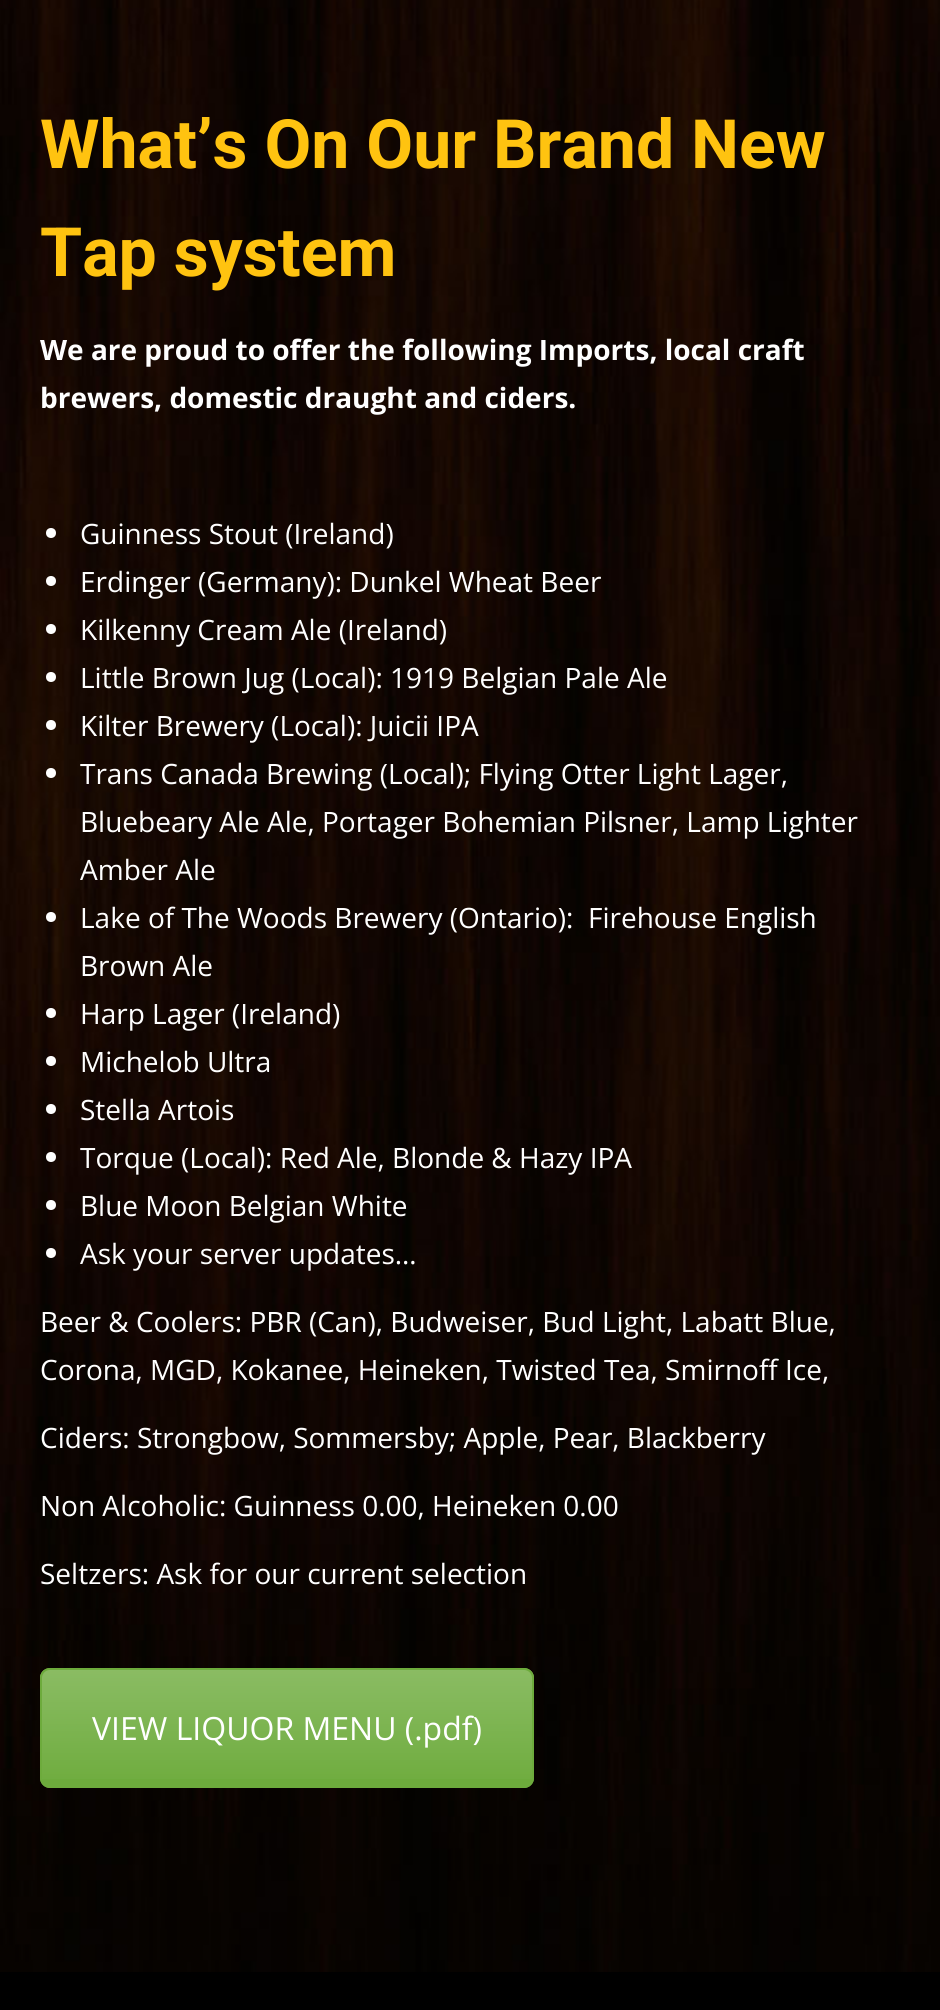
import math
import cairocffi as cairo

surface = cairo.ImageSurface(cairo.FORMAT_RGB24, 940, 2010)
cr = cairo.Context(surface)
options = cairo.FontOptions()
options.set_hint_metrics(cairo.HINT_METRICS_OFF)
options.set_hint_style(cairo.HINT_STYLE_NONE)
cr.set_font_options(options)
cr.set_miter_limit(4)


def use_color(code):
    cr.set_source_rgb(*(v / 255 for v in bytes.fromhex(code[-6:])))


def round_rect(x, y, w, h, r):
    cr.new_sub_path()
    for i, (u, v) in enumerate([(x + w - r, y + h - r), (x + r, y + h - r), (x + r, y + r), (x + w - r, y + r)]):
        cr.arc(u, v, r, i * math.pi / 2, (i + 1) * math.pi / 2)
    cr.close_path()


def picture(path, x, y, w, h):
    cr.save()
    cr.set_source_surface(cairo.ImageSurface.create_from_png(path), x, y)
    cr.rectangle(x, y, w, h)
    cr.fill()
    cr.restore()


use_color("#ffffff")
cr.paint()
picture("img1.png", 0, 0, 940, 1972)
cr.select_font_face("Roboto", cairo.FONT_SLANT_NORMAL, cairo.FONT_WEIGHT_BOLD)
cr.set_font_size(68)
use_color("#ffc310")
cr.move_to(40, 168)
cr.show_text("What’s On Our Brand New")
cr.move_to(40, 276)
cr.show_text("Tap system")
cr.select_font_face("Open Sans", cairo.FONT_SLANT_NORMAL, cairo.FONT_WEIGHT_BOLD)
cr.set_font_size(28)
use_color("#ffffff")
cr.move_to(40, 360)
cr.show_text("We are proud to offer the following Imports, local craft")
cr.move_to(40, 408)
cr.show_text("brewers, domestic draught and ciders.")
cr.new_path()
cr.arc(51, 533, 5, 0, 2 * math.pi)
cr.fill()
cr.select_font_face("Open Sans")
cr.move_to(80, 544)
cr.show_text("Guinness Stout (Ireland)")
cr.new_path()
cr.arc(51, 581, 5, 0, 2 * math.pi)
cr.fill()
cr.move_to(80, 592)
cr.show_text("Erdinger (Germany): Dunkel Wheat Beer")
cr.new_path()
cr.arc(51, 629, 5, 0, 2 * math.pi)
cr.fill()
cr.move_to(80, 640)
cr.show_text("Kilkenny Cream Ale (Ireland)")
cr.new_path()
cr.arc(51, 677, 5, 0, 2 * math.pi)
cr.fill()
cr.move_to(80, 688)
cr.show_text("Little Brown Jug (Local): 1919 Belgian Pale Ale")
cr.new_path()
cr.arc(51, 725, 5, 0, 2 * math.pi)
cr.fill()
cr.move_to(80, 736)
cr.show_text("Kilter Brewery (Local): Juicii IPA")
cr.new_path()
cr.arc(51, 773, 5, 0, 2 * math.pi)
cr.fill()
cr.move_to(80, 784)
cr.show_text("Trans Canada Brewing (Local); Flying Otter Light Lager,")
cr.move_to(80, 832)
cr.show_text("Bluebeary Ale Ale, Portager Bohemian Pilsner, Lamp Lighter")
cr.move_to(80, 880)
cr.show_text("Amber Ale")
cr.new_path()
cr.arc(51, 917, 5, 0, 2 * math.pi)
cr.fill()
cr.move_to(80, 928)
cr.show_text("Lake of The Woods Brewery (Ontario):  Firehouse English")
cr.move_to(80, 976)
cr.show_text("Brown Ale")
cr.new_path()
cr.arc(51, 1013, 5, 0, 2 * math.pi)
cr.fill()
cr.move_to(80, 1024)
cr.show_text("Harp Lager (Ireland)")
cr.new_path()
cr.arc(51, 1061, 5, 0, 2 * math.pi)
cr.fill()
cr.move_to(80, 1072)
cr.show_text("Michelob Ultra")
cr.new_path()
cr.arc(51, 1109, 5, 0, 2 * math.pi)
cr.fill()
cr.move_to(80, 1120)
cr.show_text("Stella Artois")
cr.new_path()
cr.arc(51, 1157, 5, 0, 2 * math.pi)
cr.fill()
cr.move_to(80, 1168)
cr.show_text("Torque (Local): Red Ale, Blonde & Hazy IPA")
cr.new_path()
cr.arc(51, 1205, 5, 0, 2 * math.pi)
cr.fill()
cr.move_to(80, 1216)
cr.show_text("Blue Moon Belgian White")
cr.new_path()
cr.arc(51, 1253, 5, 0, 2 * math.pi)
cr.fill()
cr.move_to(80, 1264)
cr.show_text("Ask your server updates…")
cr.move_to(40, 1332)
cr.show_text("Beer & Coolers: PBR (Can), Budweiser, Bud Light, Labatt Blue,")
cr.move_to(40, 1380)
cr.show_text("Corona, MGD, Kokanee, Heineken, Twisted Tea, Smirnoff Ice,")
cr.move_to(40, 1448)
cr.show_text("Ciders: Strongbow, Sommersby; Apple, Pear, Blackberry")
cr.move_to(40, 1516)
cr.show_text("Non Alcoholic: Guinness 0.00, Heineken 0.00")
cr.move_to(40, 1584)
cr.show_text("Seltzers: Ask for our current selection")
use_color("#6dab3c")
round_rect(40, 1668, 494, 120, 10)
cr.fill()
cr.save()
round_rect(40, 1668, 494, 120, 10)
cr.clip()
gradient = cairo.LinearGradient(287, 1670, 287, 1786)
gradient.add_color_stop_rgba(0, 1, 1, 1, 0.2)
gradient.add_color_stop_rgba(1, 1, 1, 1, 0.01)
cr.set_source(gradient)
cr.rectangle(40, 1670, 494, 109)
cr.fill()
cr.restore()
round_rect(41, 1669, 492, 118, 9)
cr.stroke()
cr.set_font_size(32)
use_color("#ffffff")
cr.move_to(92, 1740)
cr.show_text("VIEW LIQUOR MENU (.pdf)")
use_color("#000000")
cr.rectangle(0, 1972, 940, 38)
cr.fill()
surface.write_to_png("result.png")
